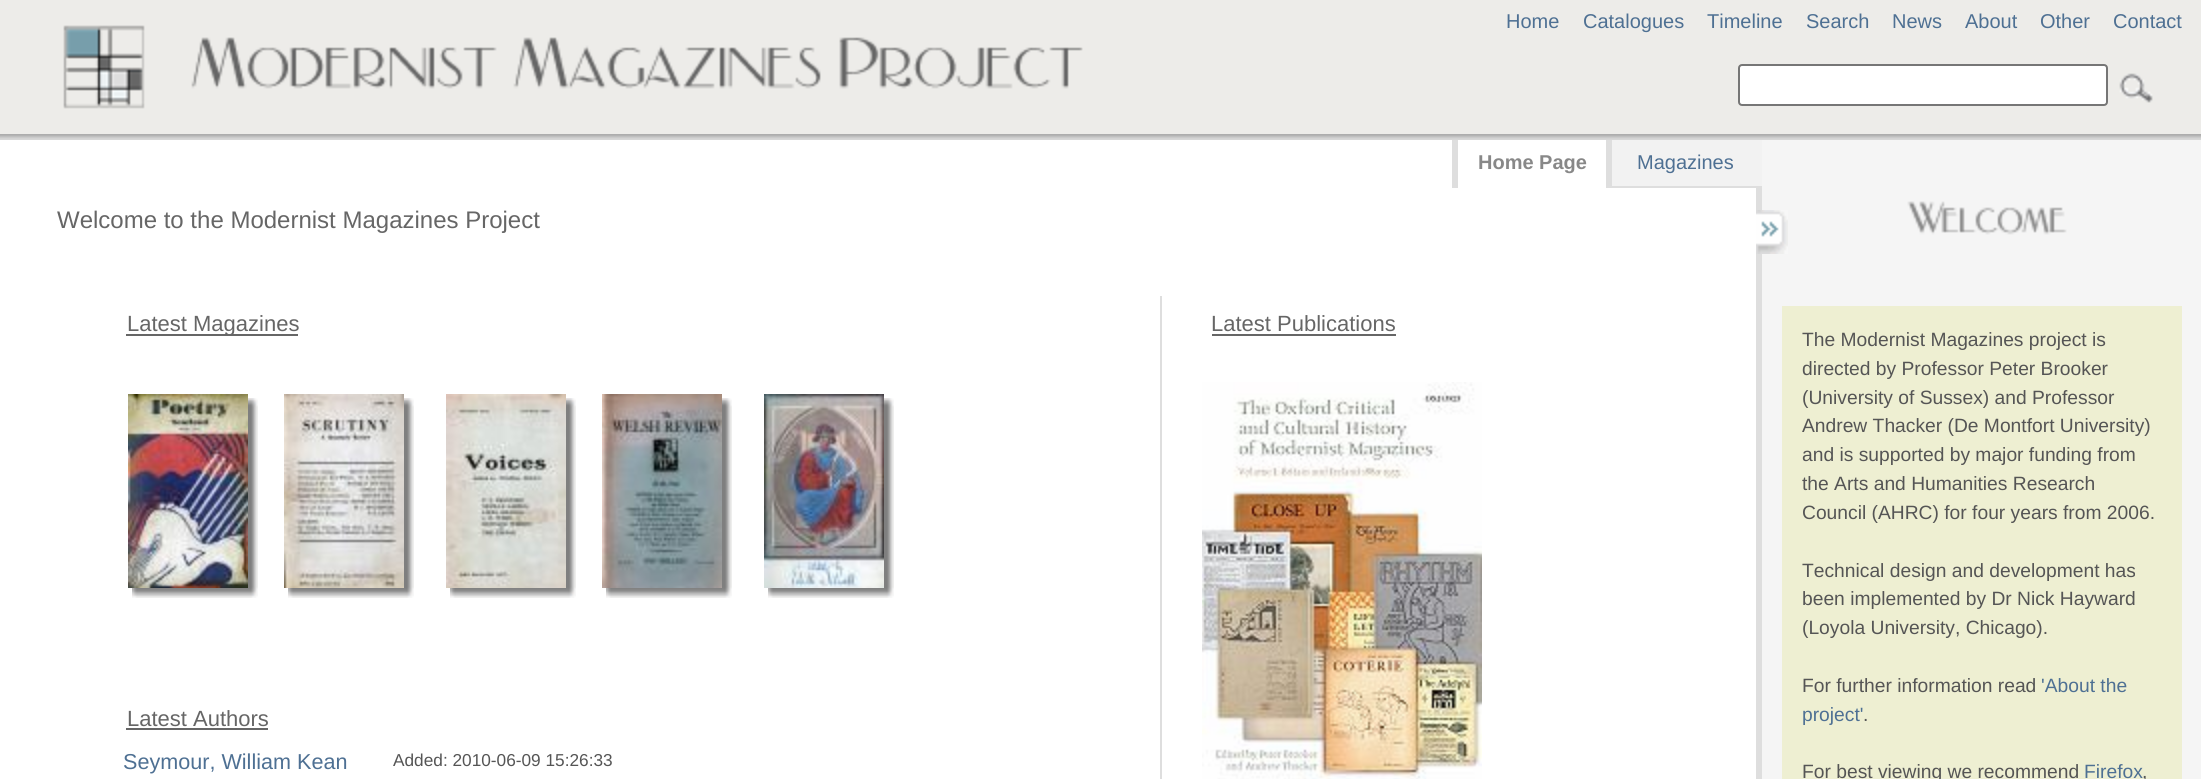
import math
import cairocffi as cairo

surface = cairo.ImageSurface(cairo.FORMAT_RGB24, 2201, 779)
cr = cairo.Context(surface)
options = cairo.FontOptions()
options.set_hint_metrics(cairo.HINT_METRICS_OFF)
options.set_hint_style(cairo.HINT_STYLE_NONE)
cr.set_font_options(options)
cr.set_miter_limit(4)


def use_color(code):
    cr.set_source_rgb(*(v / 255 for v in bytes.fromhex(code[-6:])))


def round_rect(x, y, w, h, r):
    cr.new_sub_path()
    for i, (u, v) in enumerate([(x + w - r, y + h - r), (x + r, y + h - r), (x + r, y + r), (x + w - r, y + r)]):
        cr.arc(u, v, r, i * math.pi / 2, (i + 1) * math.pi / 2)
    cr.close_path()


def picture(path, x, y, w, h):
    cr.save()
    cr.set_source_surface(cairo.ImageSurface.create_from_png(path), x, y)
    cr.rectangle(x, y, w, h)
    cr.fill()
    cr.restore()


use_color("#edece9")
cr.paint()
picture("img1.png", 0, 134, 2201, 6)
cr.select_font_face("Liberation Sans")
cr.set_font_size(20)
use_color("#4e7093")
cr.move_to(1506, 28)
cr.show_text("Home")
cr.move_to(1583, 28)
cr.show_text("Catalogues")
cr.move_to(1707, 28)
cr.show_text("Timeline")
cr.move_to(1806, 28)
cr.show_text("Search")
cr.move_to(1892, 28)
cr.show_text("News")
cr.move_to(1965, 28)
cr.show_text("About")
cr.move_to(2040, 28)
cr.show_text("Other")
cr.move_to(2113, 28)
cr.show_text("Contact")
picture("img2.png", 63, 25, 1020, 84)
use_color("#ffffff")
round_rect(1739, 65, 368, 40, 3)
cr.fill_preserve()
use_color("#767676")
cr.stroke()
picture("img3.png", 2119, 73, 34, 30)
use_color("#f5f5f5")
cr.rectangle(1762, 140, 439, 639)
cr.fill()
use_color("#ffffff")
cr.rectangle(0, 140, 1756, 639)
cr.fill()
use_color("#dedede")
cr.rectangle(1756, 188, 6, 591)
cr.fill()
use_color("#f2f2f2")
cr.rectangle(1612, 140, 150, 46)
cr.fill()
use_color("#dedede")
cr.rectangle(1612, 186, 150, 2)
cr.fill()
cr.rectangle(1606, 140, 6, 48)
cr.fill()
cr.rectangle(1452, 140, 6, 48)
cr.fill()
cr.select_font_face("Liberation Sans", cairo.FONT_SLANT_NORMAL, cairo.FONT_WEIGHT_BOLD)
use_color("#888888")
cr.move_to(1478, 169)
cr.show_text("Home Page")
cr.select_font_face("Liberation Sans")
use_color("#4e7093")
cr.move_to(1637, 169)
cr.show_text("Magazines")
cr.set_font_size(24)
use_color("#666666")
cr.move_to(57, 228)
cr.show_text("Welcome to the Modernist Magazines Project")
cr.rectangle(126, 334, 172, 2)
cr.fill()
cr.set_font_size(22)
cr.move_to(127, 331)
cr.show_text("Latest Magazines")
use_color("#dedede")
cr.rectangle(1160, 296, 2, 483)
cr.fill()
use_color("#666666")
cr.move_to(1211, 331)
cr.show_text("Latest Publications")
cr.rectangle(1212, 334, 184, 2)
cr.fill()
picture("img4.png", 1202, 382, 280, 397)
picture("img5.png", 128, 394, 130, 204)
picture("img6.png", 284, 394, 130, 204)
picture("img7.png", 446, 394, 130, 204)
picture("img8.png", 602, 394, 130, 204)
picture("img9.png", 764, 394, 130, 204)
cr.move_to(127, 726)
cr.show_text("Latest Authors")
cr.rectangle(126, 728, 142, 2)
cr.fill()
cr.set_font_size(21.6)
use_color("#4e7093")
cr.move_to(123, 769)
cr.show_text("Seymour, William Kean")
cr.set_font_size(17.25)
use_color("#555555")
cr.move_to(393, 766)
cr.show_text("Added: 2010-06-09 15:26:33")
picture("img10.png", 1756, 210, 32, 44)
picture("img11.png", 1907, 201, 160, 34)
use_color("#eeefd2")
cr.rectangle(1782, 306, 400, 473)
cr.fill()
cr.set_font_size(19.25)
use_color("#555555")
cr.move_to(1802, 346)
cr.show_text("The Modernist Magazines project is")
cr.move_to(1802, 375)
cr.show_text("directed by Professor Peter Brooker")
cr.move_to(1802, 404)
cr.show_text("(University of Sussex) and Professor")
cr.move_to(1802, 432)
cr.show_text("Andrew Thacker (De Montfort University)")
cr.move_to(1802, 461)
cr.show_text("and is supported by major funding from")
cr.move_to(1802, 490)
cr.show_text("the Arts and Humanities Research")
cr.move_to(1802, 519)
cr.show_text("Council (AHRC) for four years from 2006.")
cr.move_to(1802, 577)
cr.show_text("Technical design and development has")
cr.move_to(1802, 605)
cr.show_text("been implemented by Dr Nick Hayward")
cr.move_to(1802, 634)
cr.show_text("(Loyola University, Chicago).")
cr.move_to(1802, 692)
cr.show_text("For further information read")
use_color("#4e7093")
cr.move_to(2041, 692)
cr.show_text("'About the")
cr.move_to(1802, 721)
cr.show_text("project'")
use_color("#555555")
cr.move_to(1863, 721)
cr.show_text(".")
cr.move_to(1802, 778)
cr.show_text("For best viewing we recommend")
use_color("#4e7093")
cr.move_to(2084, 778)
cr.show_text("Firefox")
use_color("#555555")
cr.move_to(2142, 778)
cr.show_text(",")
surface.write_to_png("result.png")
